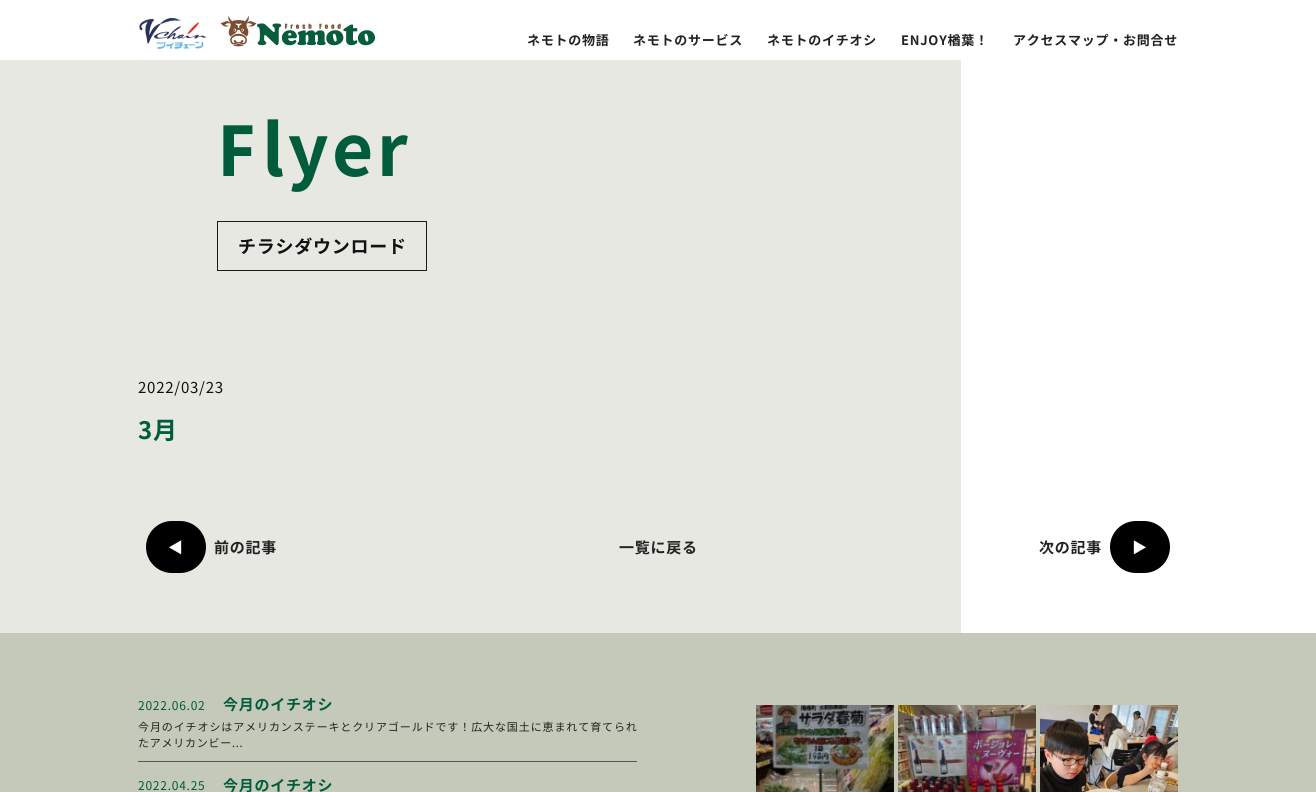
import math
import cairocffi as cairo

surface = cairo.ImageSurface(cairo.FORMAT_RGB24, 1316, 792)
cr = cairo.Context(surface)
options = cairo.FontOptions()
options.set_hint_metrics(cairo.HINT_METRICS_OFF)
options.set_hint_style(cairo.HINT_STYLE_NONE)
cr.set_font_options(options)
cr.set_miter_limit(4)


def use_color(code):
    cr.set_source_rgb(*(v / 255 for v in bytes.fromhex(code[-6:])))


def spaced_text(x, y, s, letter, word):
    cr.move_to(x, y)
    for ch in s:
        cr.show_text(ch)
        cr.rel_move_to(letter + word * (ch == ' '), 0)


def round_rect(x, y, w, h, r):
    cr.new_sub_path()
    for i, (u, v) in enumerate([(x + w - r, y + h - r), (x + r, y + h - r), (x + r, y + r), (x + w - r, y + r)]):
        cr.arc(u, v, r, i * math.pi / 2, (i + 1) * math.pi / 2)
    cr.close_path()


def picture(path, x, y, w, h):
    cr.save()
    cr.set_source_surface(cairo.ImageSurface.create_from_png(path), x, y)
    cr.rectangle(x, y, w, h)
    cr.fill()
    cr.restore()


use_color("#ffffff")
cr.paint()
picture("img1.png", 138, 15, 237, 35)
cr.select_font_face("Noto Sans JP", cairo.FONT_SLANT_NORMAL, cairo.FONT_WEIGHT_BOLD)
cr.set_font_size(13)
use_color("#222222")
spaced_text(527, 45, "ネモトの物語", 0.75, 0)
spaced_text(633, 45, "ネモトのサービス", 0.75, 0)
spaced_text(767, 45, "ネモトのイチオシ", 0.75, 0)
spaced_text(901, 45, "ENJOY楢葉！", 0.75, 0)
spaced_text(1013, 45, "アクセスマップ・お問合せ", 0.75, 0)
use_color("#e6e8e1")
cr.rectangle(0, 60, 961, 573)
cr.fill()
cr.select_font_face("Noto Sans", cairo.FONT_SLANT_NORMAL, cairo.FONT_WEIGHT_BOLD)
cr.set_font_size(71)
use_color("#005c3b")
spaced_text(217, 176, "F", 3.5, 0)
cr.select_font_face("Noto Sans JP", cairo.FONT_SLANT_NORMAL, cairo.FONT_WEIGHT_BOLD)
spaced_text(262, 176, "lyer", 3.5, 0)
cr.rectangle(217.5, 221.5, 209, 49)
use_color("#231815")
cr.set_line_width(1)
cr.stroke()
cr.set_font_size(18)
use_color("#111111")
spaced_text(238, 253, "チラシダウンロード", 0.75, 0)
cr.select_font_face("Noto Sans JP")
cr.set_font_size(15)
spaced_text(138, 393, "2022/03/23", 0.75, 0)
cr.select_font_face("Noto Sans JP", cairo.FONT_SLANT_NORMAL, cairo.FONT_WEIGHT_BOLD)
cr.set_font_size(24)
use_color("#005c3b")
spaced_text(138, 439, "3月", 0.75, 0)
use_color("#000000")
round_rect(146, 521, 60, 52, 26)
cr.fill()
cr.set_font_size(15)
use_color("#ffffff")
spaced_text(168, 553, "◀", 0.75, 0)
use_color("#222222")
spaced_text(214, 553, "前の記事", 0.75, 0)
spaced_text(619, 553, "一覧に戻る", 0.75, 0)
spaced_text(1039, 553, "次の記事", 0.75, 0)
use_color("#000000")
round_rect(1110, 521, 60, 52, 26)
cr.fill()
use_color("#ffffff")
spaced_text(1132, 553, "▶", 0.75, 0)
use_color("#c4c9b9")
cr.rectangle(0, 633, 1316, 159)
cr.fill()
use_color("#555555")
cr.rectangle(138, 761, 499, 1)
cr.fill()
cr.select_font_face("Noto Sans JP")
cr.set_font_size(12)
use_color("#005c3b")
spaced_text(138, 710, "2022.06.02", 0.75, 0)
cr.select_font_face("Noto Sans JP", cairo.FONT_SLANT_NORMAL, cairo.FONT_WEIGHT_BOLD)
cr.set_font_size(15)
spaced_text(223, 710, "今月のイチオシ", 0.75, 0)
cr.select_font_face("Noto Sans JP")
cr.set_font_size(11)
use_color("#222222")
spaced_text(138, 731, "今月のイチオシはアメリカンステーキとクリアゴールドです！広大な国土に恵まれて育てられ", 0.9, 0)
spaced_text(138, 747, "たアメリカンビー...", 0.75, 0)
cr.set_font_size(12)
use_color("#005c3b")
spaced_text(138, 790, "2022.04.25", 0.75, 0)
cr.select_font_face("Noto Sans JP", cairo.FONT_SLANT_NORMAL, cairo.FONT_WEIGHT_BOLD)
cr.set_font_size(15)
spaced_text(223, 791, "今月のイチオシ", 0.75, 0)
picture("img2.png", 756, 705, 138, 87)
picture("img3.png", 898, 705, 138, 87)
picture("img4.png", 1040, 705, 138, 87)
surface.write_to_png("result.png")
